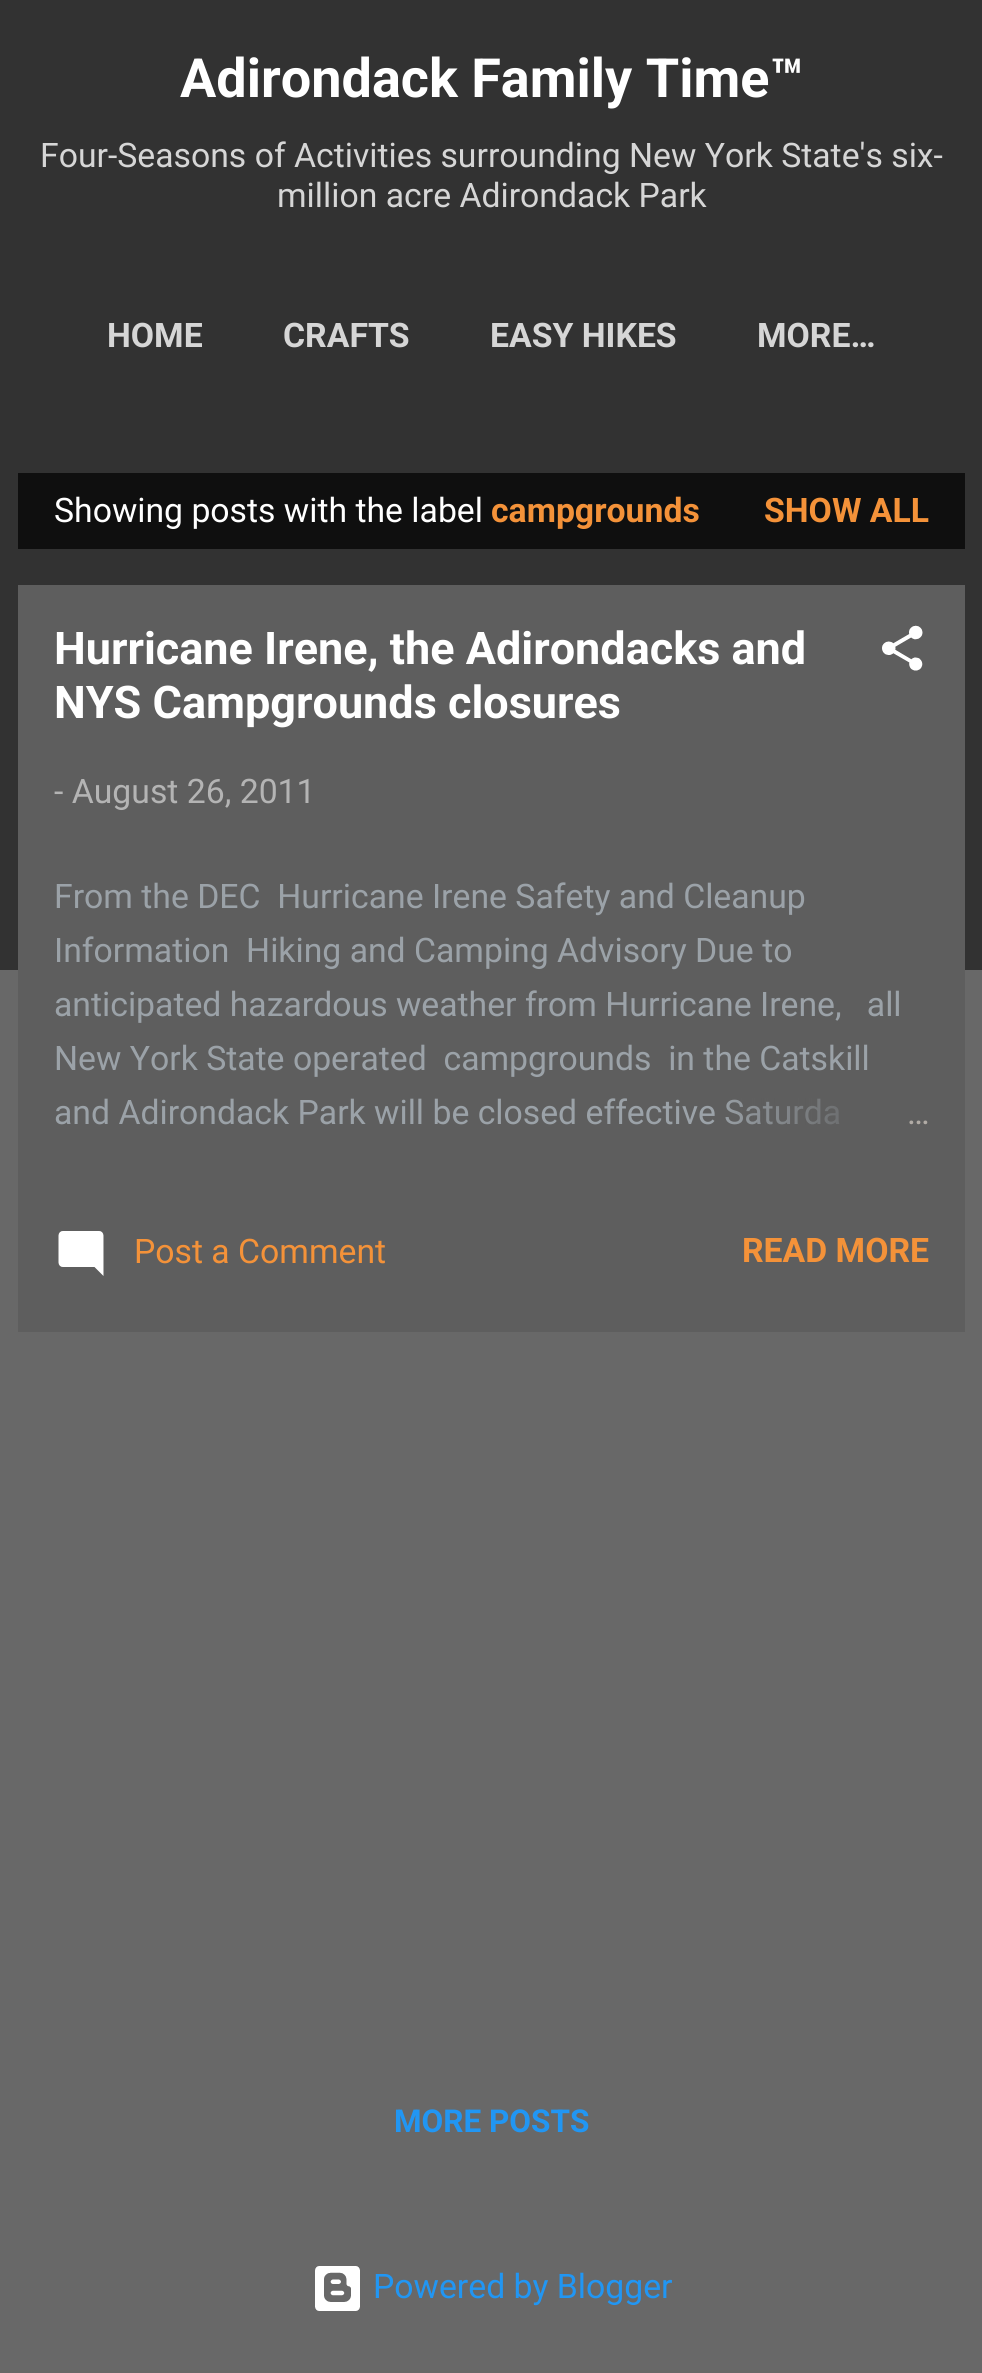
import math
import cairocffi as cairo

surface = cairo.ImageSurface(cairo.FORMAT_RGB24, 982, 2373)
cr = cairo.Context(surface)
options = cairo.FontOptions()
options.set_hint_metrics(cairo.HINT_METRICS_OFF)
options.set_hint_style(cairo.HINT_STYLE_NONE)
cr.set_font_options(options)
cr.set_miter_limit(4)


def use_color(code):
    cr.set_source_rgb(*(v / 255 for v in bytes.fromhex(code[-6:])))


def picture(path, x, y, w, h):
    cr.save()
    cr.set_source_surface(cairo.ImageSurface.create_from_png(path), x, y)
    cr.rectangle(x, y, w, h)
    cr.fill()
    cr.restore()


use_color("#686868")
cr.paint()
use_color("#323232")
cr.rectangle(0, 0, 982, 970)
cr.fill()
cr.select_font_face("Roboto", cairo.FONT_SLANT_NORMAL, cairo.FONT_WEIGHT_BOLD)
cr.set_font_size(54)
use_color("#ffffff")
cr.move_to(180, 97)
cr.show_text("Adirondack Family Time™")
cr.select_font_face("Roboto")
cr.set_font_size(33.75)
use_color("#d6d6d6")
cr.move_to(40, 167)
cr.show_text("Four-Seasons of Activities surrounding New York State's six-")
cr.move_to(277, 207)
cr.show_text("million acre Adirondack Park")
cr.select_font_face("Roboto", cairo.FONT_SLANT_NORMAL, cairo.FONT_WEIGHT_BOLD)
cr.move_to(107, 347)
cr.show_text("HOME")
cr.move_to(283, 347)
cr.show_text("CRAFTS")
cr.move_to(490, 347)
cr.show_text("EASY HIKES")
cr.move_to(757, 347)
cr.show_text("MORE…")
use_color("#0f0f0f")
cr.rectangle(18, 473, 947, 76)
cr.fill()
cr.select_font_face("Roboto")
use_color("#ffffff")
cr.move_to(54, 522)
cr.show_text("Showing posts with the label")
cr.select_font_face("Roboto", cairo.FONT_SLANT_NORMAL, cairo.FONT_WEIGHT_BOLD)
use_color("#f49239")
cr.move_to(491, 522)
cr.show_text("campgrounds")
cr.move_to(764, 522)
cr.show_text("SHOW ALL")
use_color("#5e5e5e")
cr.rectangle(18, 585, 947, 747)
cr.fill()
cr.set_font_size(45)
use_color("#ffffff")
cr.move_to(54, 664)
cr.show_text("Hurricane Irene, the Adirondacks and")
cr.move_to(54, 718)
cr.show_text("NYS Campgrounds closures")
picture("img1.png", 882, 625, 41, 46)
cr.select_font_face("Roboto")
cr.set_font_size(33.75)
use_color("#b4b4b4")
cr.move_to(54, 803)
cr.show_text("- August 26, 2011")
use_color("#9ba2a8")
cr.move_to(54, 908)
cr.show_text("From the DEC  Hurricane Irene Safety and Cleanup")
cr.move_to(54, 962)
cr.show_text("Information  Hiking and Camping Advisory Due to")
cr.move_to(54, 1016)
cr.show_text("anticipated hazardous weather from Hurricane Irene,   all")
cr.move_to(54, 1070)
cr.show_text("New York State operated  campgrounds  in the Catskill")
cr.move_to(54, 1124)
cr.show_text("and Adirondack Park will be closed effective Saturda")
gradient = cairo.LinearGradient(929, 1114, 713, 1114)
gradient.add_color_stop_rgba(0, 0.369, 0.369, 0.369, 1)
gradient.add_color_stop_rgba(0.2, 0.369, 0.369, 0.369, 1)
gradient.add_color_stop_rgba(1, 0.369, 0.369, 0.369, 0)
cr.set_source(gradient)
cr.rectangle(726, 1098, 114, 27)
cr.fill()
use_color("#b1aba5")
cr.move_to(907, 1124)
cr.show_text("…")
picture("img2.png", 58, 1231, 46, 45)
use_color("#f49239")
cr.move_to(134, 1263)
cr.show_text("Post a Comment")
cr.select_font_face("Roboto", cairo.FONT_SLANT_NORMAL, cairo.FONT_WEIGHT_BOLD)
cr.move_to(742, 1262)
cr.show_text("READ MORE")
cr.set_font_size(31.5)
use_color("#2196f3")
cr.move_to(394, 2132)
cr.show_text("MORE POSTS")
picture("img3.png", 315, 2266, 45, 45)
cr.select_font_face("Roboto")
cr.set_font_size(33.75)
cr.move_to(373, 2298)
cr.show_text("Powered by Blogger")
surface.write_to_png("result.png")
